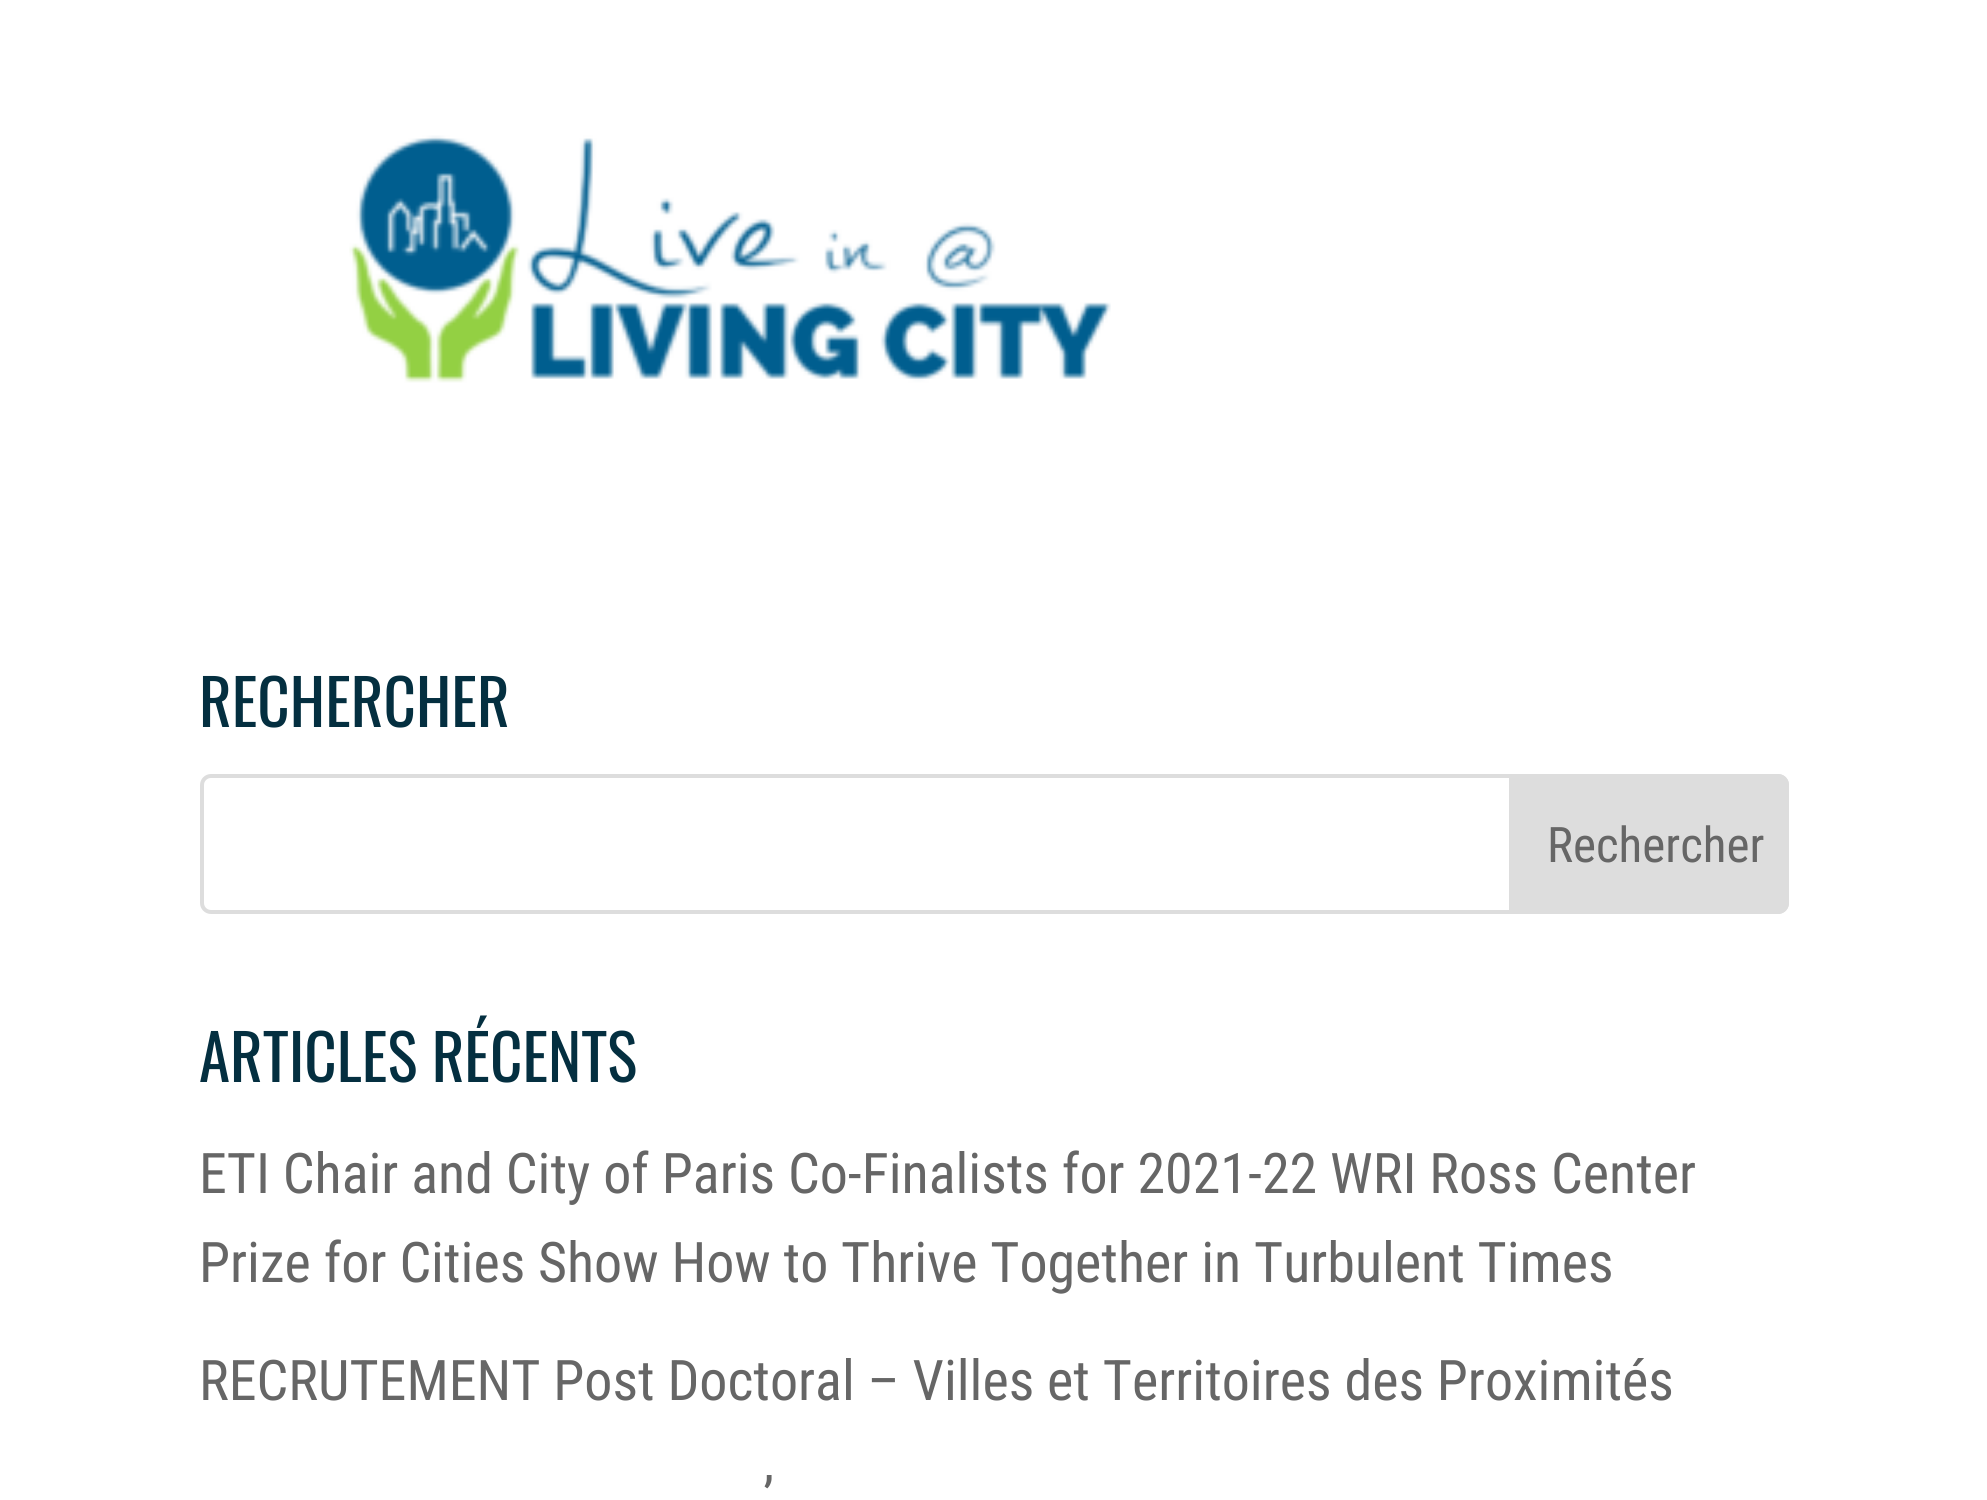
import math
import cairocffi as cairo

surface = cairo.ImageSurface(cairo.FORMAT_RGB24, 1987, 1500)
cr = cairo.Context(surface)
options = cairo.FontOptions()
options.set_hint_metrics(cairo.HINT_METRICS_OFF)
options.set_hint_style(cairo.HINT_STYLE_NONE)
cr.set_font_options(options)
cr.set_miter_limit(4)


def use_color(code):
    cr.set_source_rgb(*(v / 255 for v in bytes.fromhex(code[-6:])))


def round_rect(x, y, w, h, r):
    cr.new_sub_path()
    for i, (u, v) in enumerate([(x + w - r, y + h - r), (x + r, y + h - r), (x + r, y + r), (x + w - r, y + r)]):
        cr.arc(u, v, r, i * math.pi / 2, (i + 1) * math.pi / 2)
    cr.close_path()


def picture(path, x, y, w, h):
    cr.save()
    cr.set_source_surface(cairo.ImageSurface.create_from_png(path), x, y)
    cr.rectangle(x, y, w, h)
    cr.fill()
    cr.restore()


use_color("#ffffff")
cr.paint()
picture("img1.png", 349, 135, 762, 248)
cr.select_font_face("Oswald")
cr.set_font_size(63)
use_color("#042f40")
cr.move_to(199, 727)
cr.show_text("RECHERCHER")
round_rect(202, 776, 1585, 136, 9)
use_color("#dddddd")
cr.set_line_width(4)
cr.stroke()
cr.new_path()
cr.move_to(1511, 776)
cr.line_to(1778, 776)
cr.curve_to(1783, 776, 1787, 780, 1787, 785)
cr.line_to(1787, 903)
cr.curve_to(1787, 908, 1783, 912, 1778, 912)
cr.line_to(1511, 912)
cr.close_path()
cr.fill_preserve()
cr.stroke()
cr.select_font_face("Roboto Condensed")
cr.set_font_size(49)
use_color("#666666")
cr.move_to(1547, 862)
cr.show_text("Rechercher")
cr.select_font_face("Oswald")
cr.set_font_size(63)
use_color("#042f40")
cr.move_to(199, 1082)
cr.show_text("ARTICLES RÉCENTS")
cr.select_font_face("Roboto Condensed")
cr.set_font_size(56)
use_color("#666666")
cr.move_to(199, 1193)
cr.show_text("ETI Chair and City of Paris Co-Finalists for 2021-22 WRI Ross Center")
cr.move_to(199, 1282)
cr.show_text("Prize for Cities Show How to Thrive Together in Turbulent Times")
cr.move_to(199, 1400)
cr.show_text("RECRUTEMENT Post Doctoral – Villes et Territoires des Proximités")
cr.move_to(763, 1517)
cr.show_text("’")
surface.write_to_png("result.png")
